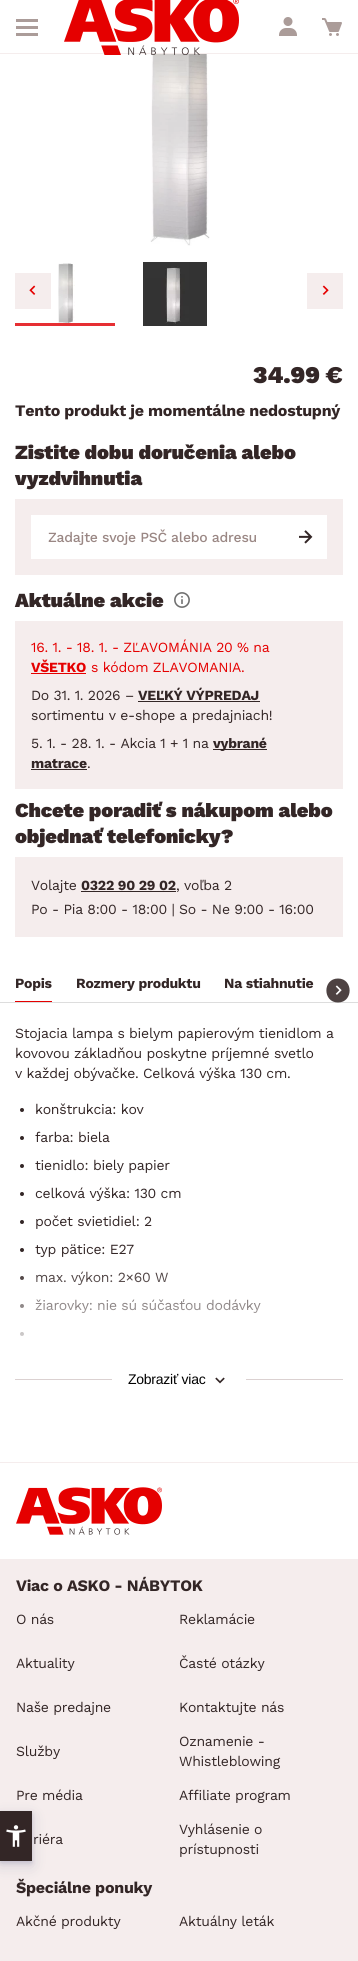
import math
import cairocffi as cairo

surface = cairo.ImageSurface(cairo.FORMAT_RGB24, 358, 1961)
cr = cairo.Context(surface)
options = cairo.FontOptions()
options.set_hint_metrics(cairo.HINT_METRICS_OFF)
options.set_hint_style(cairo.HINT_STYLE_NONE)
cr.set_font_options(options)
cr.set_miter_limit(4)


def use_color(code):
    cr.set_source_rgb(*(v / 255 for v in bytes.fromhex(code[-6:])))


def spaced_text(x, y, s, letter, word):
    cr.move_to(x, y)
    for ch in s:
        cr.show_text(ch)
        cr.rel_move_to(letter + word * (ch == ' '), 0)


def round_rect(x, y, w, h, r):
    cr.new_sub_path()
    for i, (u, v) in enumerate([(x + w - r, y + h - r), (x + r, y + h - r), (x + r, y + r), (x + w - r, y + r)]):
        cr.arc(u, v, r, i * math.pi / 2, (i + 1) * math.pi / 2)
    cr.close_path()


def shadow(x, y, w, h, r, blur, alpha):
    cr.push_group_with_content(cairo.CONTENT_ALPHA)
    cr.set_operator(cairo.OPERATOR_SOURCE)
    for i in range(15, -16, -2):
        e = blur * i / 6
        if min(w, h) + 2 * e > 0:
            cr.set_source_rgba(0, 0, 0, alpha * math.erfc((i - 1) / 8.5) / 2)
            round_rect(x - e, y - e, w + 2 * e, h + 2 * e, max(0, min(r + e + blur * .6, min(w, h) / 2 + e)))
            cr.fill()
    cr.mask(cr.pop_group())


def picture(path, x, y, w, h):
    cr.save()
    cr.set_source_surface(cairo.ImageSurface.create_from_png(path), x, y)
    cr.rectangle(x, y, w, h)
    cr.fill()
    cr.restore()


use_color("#ffffff")
cr.paint()
use_color("#f5eded")
cr.rectangle(0, 53, 358, 1)
cr.fill()
picture("img4.png", 150, 54, 60, 192)
picture("img1.png", 64, 0, 175, 55)
picture("img2.png", 279, 17, 18, 19)
picture("img3.png", 322, 18, 20, 18)
use_color("#ab9c99")
cr.rectangle(16, 19, 22, 3)
cr.fill()
cr.rectangle(16, 26, 22, 3)
cr.fill()
cr.rectangle(16, 33, 22, 3)
cr.fill()
picture("img5.png", 58, 263, 17, 60)
use_color("#e62f33")
cr.rectangle(15, 323, 100, 3)
cr.fill()
picture("img6.png", 143, 262, 64, 64)
use_color("#f5eded")
cr.rectangle(15, 273, 36, 36)
cr.fill()
picture("img7.png", 29, 285, 7, 10)
cr.rectangle(307, 273, 36, 36)
cr.fill()
picture("img8.png", 322, 285, 7, 10)
cr.select_font_face("Work Sans Black")
cr.set_font_size(24)
use_color("#332626")
spaced_text(253, 383, "34.99 €", -0.1, 0)
cr.select_font_face("Work Sans", cairo.FONT_SLANT_NORMAL, cairo.FONT_WEIGHT_BOLD)
cr.set_font_size(16)
spaced_text(15, 416, "Tento produkt je momentálne nedostupný", -0.25, 0)
cr.select_font_face("Work Sans Black")
cr.set_font_size(20)
spaced_text(15, 459, "Zistite dobu doručenia alebo", -0.1, 0)
spaced_text(15, 485, "vyzdvihnutia", -0.1, 0)
use_color("#f5eded")
cr.rectangle(15, 499, 328, 76)
cr.fill()
use_color("#ffffff")
cr.rectangle(31, 515, 296, 44)
cr.fill()
picture("img9.png", 299, 530, 14, 14)
cr.select_font_face("Work Sans Medium")
cr.set_font_size(14)
use_color("#9a8784")
spaced_text(48, 542, "Zadajte svoje PSČ alebo adresu", -0.25, 0)
cr.select_font_face("Work Sans Black")
cr.set_font_size(20)
use_color("#332626")
spaced_text(15, 607, "Aktuálne akcie", -0.1, 0)
picture("img10.png", 174, 592, 16, 16)
use_color("#f5eded")
cr.rectangle(15, 621, 328, 168)
cr.fill()
cr.select_font_face("Work Sans")
cr.set_font_size(14)
use_color("#e50000")
spaced_text(31, 652, "16. 1. - 18. 1. - ZĽAVOMÁNIA 20 % na", -0.25, 0)
cr.select_font_face("Work Sans", cairo.FONT_SLANT_NORMAL, cairo.FONT_WEIGHT_BOLD)
spaced_text(31, 672, "VŠETKO", -0.25, 0)
cr.rectangle(31, 673, 55, 1)
cr.fill()
cr.select_font_face("Work Sans")
spaced_text(91, 672, "s kódom ZLAVOMANIA.", -0.25, 0)
use_color("#332626")
spaced_text(31, 700, "Do 31. 1. 2026 –", -0.25, 0)
cr.select_font_face("Work Sans", cairo.FONT_SLANT_NORMAL, cairo.FONT_WEIGHT_BOLD)
spaced_text(138, 700, "VEĽKÝ VÝPREDAJ", -0.25, 0)
cr.rectangle(138, 701, 122, 1)
cr.fill()
cr.select_font_face("Work Sans")
spaced_text(31, 720, "sortimentu v e-shope a predajniach!", -0.25, 0)
spaced_text(31, 748, "5. 1. - 28. 1. - Akcia 1 + 1 na", -0.25, 0)
cr.rectangle(213, 749, 54, 1)
cr.fill()
cr.select_font_face("Work Sans", cairo.FONT_SLANT_NORMAL, cairo.FONT_WEIGHT_BOLD)
spaced_text(213, 748, "vybrané", -0.25, 0)
spaced_text(31, 768, "matrace", -0.25, 0)
cr.rectangle(31, 769, 56, 1)
cr.fill()
cr.select_font_face("Work Sans")
spaced_text(87, 768, ".", -0.25, 0)
cr.select_font_face("Work Sans Black")
cr.set_font_size(20)
spaced_text(15, 817, "Chcete poradiť s nákupom alebo", -0.1, 0)
spaced_text(15, 843, "objednať telefonicky?", -0.1, 0)
use_color("#f5eded")
cr.rectangle(15, 857, 328, 80)
cr.fill()
cr.select_font_face("Work Sans")
cr.set_font_size(14)
use_color("#332626")
spaced_text(31, 890, "Volajte", -0.25, 0)
cr.select_font_face("Work Sans", cairo.FONT_SLANT_NORMAL, cairo.FONT_WEIGHT_BOLD)
spaced_text(81, 890, "0322 90 29 02", -0.25, 0)
cr.rectangle(81, 891, 95, 1)
cr.fill()
cr.select_font_face("Work Sans")
spaced_text(176, 890, ", voľba 2", -0.25, 0)
spaced_text(31, 914, "Po - Pia 8:00 - 18:00 | So - Ne 9:00 - 16:00", -0.25, 0)
cr.select_font_face("Work Sans", cairo.FONT_SLANT_NORMAL, cairo.FONT_WEIGHT_BOLD)
spaced_text(15, 988, "Popis", -0.25, 0)
use_color("#e50000")
cr.rectangle(15, 1001, 37, 1)
cr.fill()
use_color("#332626")
spaced_text(76, 988, "Rozmery produktu", -0.25, 0)
spaced_text(224, 988, "Na stiahnutie", -0.25, 0)
use_color("#dddddd")
cr.rectangle(0, 1002, 358, 1)
cr.fill()
cr.set_source_rgba(0.2, 0.149, 0.149, 0.87)
cr.new_path()
cr.move_to(338, 1002.5)
cr.curve_to(322.5, 1002.5, 322.5, 978.5, 338, 978.5)
cr.curve_to(353.5, 978.5, 353.5, 1002.5, 338, 1002.5)
cr.close_path()
cr.fill()
picture("img11.png", 335, 985, 7, 10)
cr.select_font_face("Work Sans")
use_color("#332626")
spaced_text(15, 1038, "Stojacia lampa s bielym papierovým tienidlom a", -0.25, 0)
spaced_text(15, 1058, "kovovou základňou poskytne príjemné svetlo", -0.25, 0)
spaced_text(15, 1078, "v každej obývačke. Celková výška 130 cm.", -0.25, 0)
cr.new_path()
cr.arc(22, 1110, 2, 0, 2 * math.pi)
cr.fill()
spaced_text(35, 1114, "konštrukcia: kov", -0.25, 0)
cr.new_path()
cr.arc(22, 1138, 2, 0, 2 * math.pi)
cr.fill()
spaced_text(35, 1142, "farba: biela", -0.25, 0)
cr.new_path()
cr.arc(22, 1166, 2, 0, 2 * math.pi)
cr.fill()
spaced_text(35, 1170, "tienidlo: biely papier", -0.25, 0)
cr.new_path()
cr.arc(22, 1194, 2, 0, 2 * math.pi)
cr.fill()
spaced_text(35, 1198, "celková výška: 130 cm", -0.25, 0)
cr.new_path()
cr.arc(22, 1222, 2, 0, 2 * math.pi)
cr.fill()
spaced_text(35, 1226, "počet svietidiel: 2", -0.25, 0)
cr.new_path()
cr.arc(22, 1250, 2, 0, 2 * math.pi)
cr.fill()
spaced_text(35, 1254, "typ pätice: E27", -0.25, 0)
cr.new_path()
cr.arc(22, 1278, 2, 0, 2 * math.pi)
cr.fill()
spaced_text(35, 1282, "max. výkon: 2×60 W", -0.25, 0)
cr.new_path()
cr.arc(22, 1306, 2, 0, 2 * math.pi)
cr.fill()
spaced_text(35, 1310, "žiarovky: nie sú súčasťou dodávky", -0.25, 0)
cr.new_path()
cr.arc(22, 1334, 2, 0, 2 * math.pi)
cr.fill()
gradient = cairo.LinearGradient(179, 1262, 179, 1402)
gradient.add_color_stop_rgba(0, 1, 1, 1, 0)
gradient.add_color_stop_rgba(0.69, 1, 1, 1, 1)
cr.set_source(gradient)
cr.rectangle(20, 1271, 241, 65)
cr.fill()
use_color("#dbd1d1")
cr.rectangle(15, 1379, 328, 1)
cr.fill()
use_color("#ffffff")
cr.rectangle(112, 1379, 134, 1)
cr.fill()
picture("img12.png", 215, 1377, 10, 7)
cr.select_font_face("Liberation Sans")
use_color("#000000")
spaced_text(128, 1384, "Zobraziť viac", -0.25, 0)
use_color("#f5eded")
cr.rectangle(0, 1462, 358, 1)
cr.fill()
cr.rectangle(0, 1559, 358, 402)
cr.fill()
picture("img13.png", 16, 1487, 146, 48)
cr.select_font_face("Work Sans", cairo.FONT_SLANT_NORMAL, cairo.FONT_WEIGHT_BOLD)
cr.set_font_size(16)
use_color("#332626")
spaced_text(16, 1591, "Viac o ASKO - NÁBYTOK", -0.25, 0)
cr.select_font_face("Work Sans")
cr.set_font_size(14)
spaced_text(16, 1624, "O nás", -0.25, 0)
spaced_text(16, 1668, "Aktuality", -0.25, 0)
spaced_text(16, 1712, "Naše predajne", -0.25, 0)
spaced_text(16, 1756, "Služby", -0.25, 0)
spaced_text(16, 1800, "Pre média", -0.25, 0)
spaced_text(33, 1844, "riéra", -0.25, 0)
spaced_text(179, 1624, "Reklamácie", -0.25, 0)
spaced_text(179, 1668, "Časté otázky", -0.25, 0)
spaced_text(179, 1712, "Kontaktujte nás", -0.25, 0)
spaced_text(179, 1746, "Oznamenie -", -0.25, 0)
spaced_text(179, 1766, "Whistleblowing", -0.25, 0)
spaced_text(179, 1800, "Affiliate program", -0.25, 0)
spaced_text(179, 1834, "Vyhlásenie o", -0.25, 0)
spaced_text(179, 1854, "prístupnosti", -0.25, 0)
cr.select_font_face("Work Sans", cairo.FONT_SLANT_NORMAL, cairo.FONT_WEIGHT_BOLD)
cr.set_font_size(16)
spaced_text(16, 1893, "Špeciálne ponuky", -0.25, 0)
cr.select_font_face("Work Sans")
cr.set_font_size(14)
spaced_text(16, 1926, "Akčné produkty", -0.25, 0)
spaced_text(179, 1926, "Aktuálny leták", -0.25, 0)
use_color("#5d6494")
shadow(0, 1813, 32, 50, 0, 2, 0.2)
use_color("#252c61")
shadow(0, 1816, 32, 50, 0, 7.5, 0.15)
use_color("#332626")
cr.rectangle(0, 1811, 32, 50)
cr.fill()
picture("img14.png", 6, 1825, 20, 22)
surface.write_to_png("result.png")
